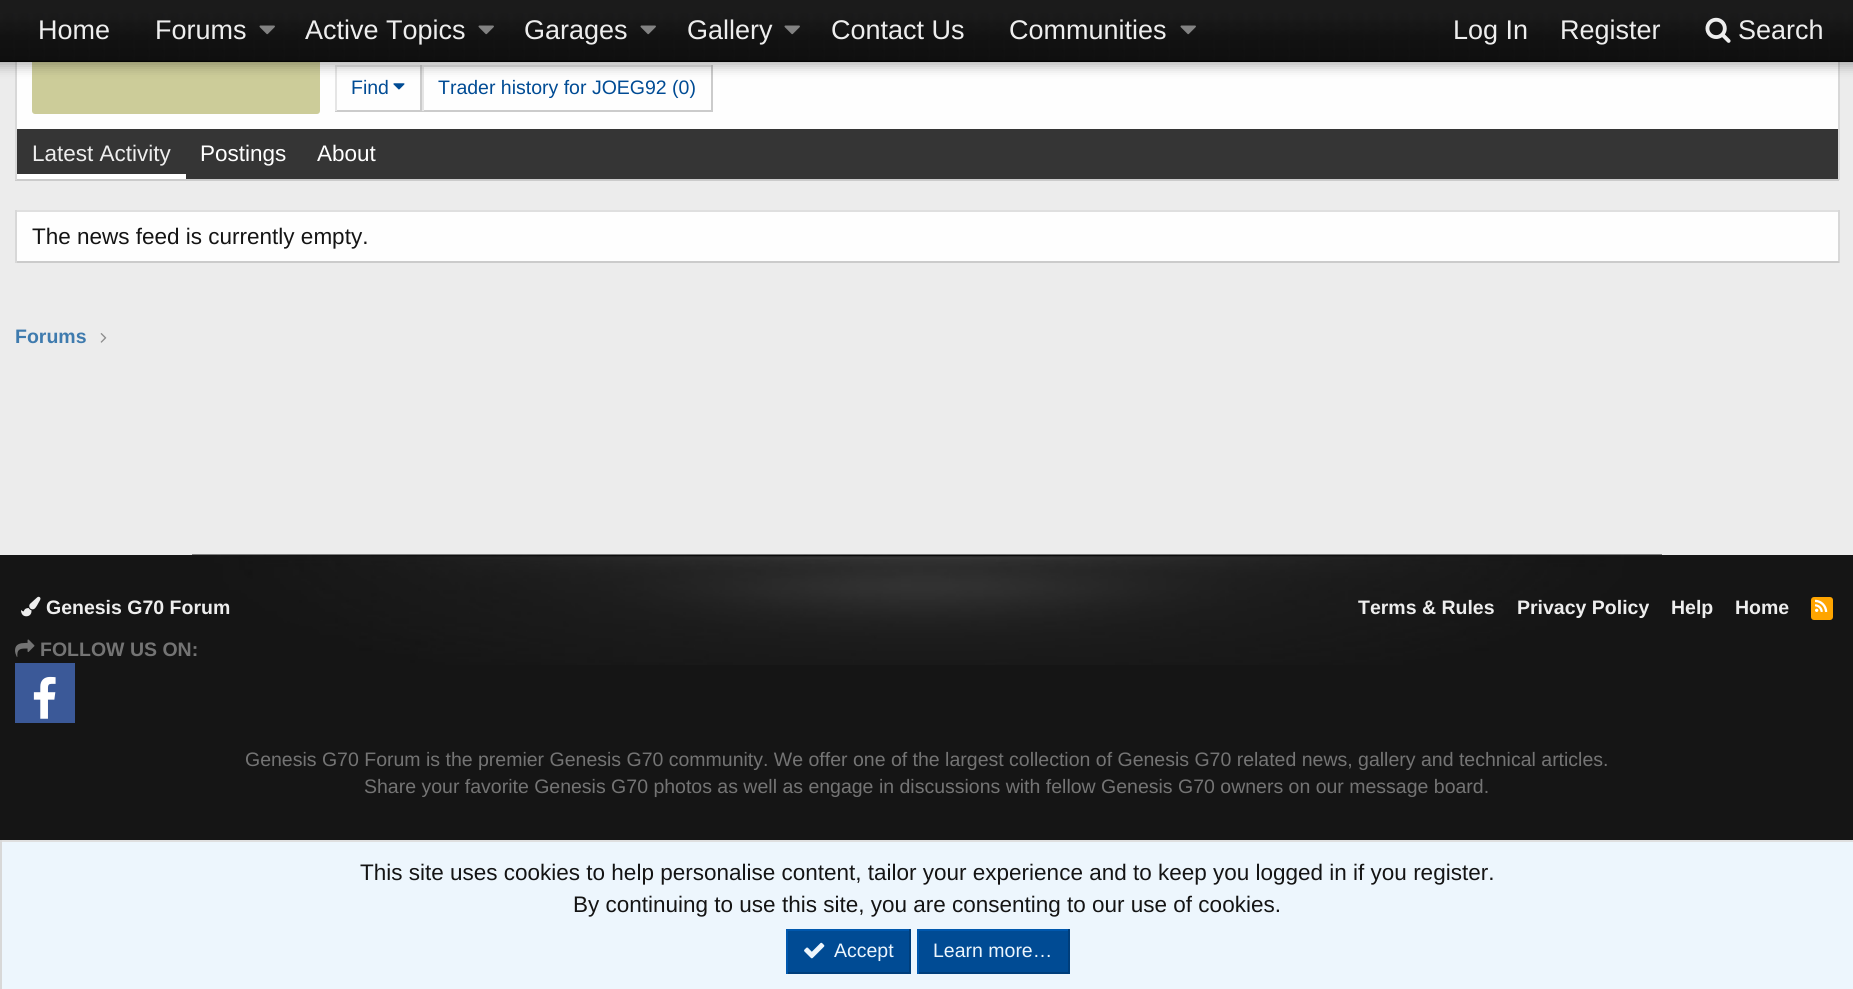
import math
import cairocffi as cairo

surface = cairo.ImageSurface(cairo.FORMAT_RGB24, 1853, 989)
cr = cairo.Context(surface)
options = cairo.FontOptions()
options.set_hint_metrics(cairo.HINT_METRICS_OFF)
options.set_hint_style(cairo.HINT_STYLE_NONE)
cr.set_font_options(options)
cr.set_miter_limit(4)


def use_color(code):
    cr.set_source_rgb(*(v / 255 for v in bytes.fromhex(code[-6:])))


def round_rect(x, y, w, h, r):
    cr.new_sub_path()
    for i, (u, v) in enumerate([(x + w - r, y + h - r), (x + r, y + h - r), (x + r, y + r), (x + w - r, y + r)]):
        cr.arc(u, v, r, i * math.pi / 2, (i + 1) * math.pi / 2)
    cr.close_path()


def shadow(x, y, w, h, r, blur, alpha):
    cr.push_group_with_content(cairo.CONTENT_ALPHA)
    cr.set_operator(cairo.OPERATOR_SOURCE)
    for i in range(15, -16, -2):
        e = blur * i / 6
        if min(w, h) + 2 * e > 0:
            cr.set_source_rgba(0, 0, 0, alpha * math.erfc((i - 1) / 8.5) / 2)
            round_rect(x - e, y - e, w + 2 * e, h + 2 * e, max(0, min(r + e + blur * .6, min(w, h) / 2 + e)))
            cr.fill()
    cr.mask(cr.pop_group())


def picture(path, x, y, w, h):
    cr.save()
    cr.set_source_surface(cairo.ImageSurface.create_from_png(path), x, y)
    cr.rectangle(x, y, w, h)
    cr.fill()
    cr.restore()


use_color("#ececec")
cr.paint()
use_color("#fefefe")
cr.rectangle(17, 62, 1821, 67)
cr.fill()
use_color("#d8d8d8")
cr.rectangle(1838, 62, 2, 118)
cr.fill()
use_color("#cbcbcb")
cr.rectangle(15, 179, 1824, 2)
cr.fill()
use_color("#d8d8d8")
cr.rectangle(15, 62, 2, 118)
cr.fill()
use_color("#cccc99")
round_rect(32, -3, 288, 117, 3)
cr.fill()
use_color("#e5e5e5")
cr.rectangle(335, 65, 378, 2)
cr.fill()
use_color("#cbcbcb")
cr.rectangle(420, 65, 2, 46)
cr.fill()
cr.rectangle(335, 110, 87, 2)
cr.fill()
use_color("#e5e5e5")
cr.rectangle(335, 65, 2, 46)
cr.fill()
picture("img6.png", 393, 83, 12, 7)
use_color("#cbcbcb")
cr.rectangle(711, 65, 2, 46)
cr.fill()
cr.rectangle(422, 110, 291, 2)
cr.fill()
use_color("#e5e5e5")
cr.rectangle(422, 65, 2, 46)
cr.fill()
use_color("#000000")
shadow(-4, -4, 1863, 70, 0, 6, 0.3)
use_color("#000000")
cr.rectangle(0, 60, 1853, 2)
cr.fill()
picture("img1.png", 0, 0, 1853, 62)
cr.select_font_face("Liberation Sans")
cr.set_font_size(27)
use_color("#eeeeee")
cr.move_to(38, 39)
cr.show_text("Home")
cr.move_to(155, 39)
cr.show_text("Forums")
picture("img2.png", 259, 25, 16, 10)
cr.move_to(305, 39)
cr.show_text("Active Topics")
picture("img3.png", 478, 25, 16, 10)
cr.move_to(524, 39)
cr.show_text("Garages")
picture("img4.png", 640, 25, 16, 10)
cr.move_to(687, 39)
cr.show_text("Gallery")
picture("img2.png", 784, 25, 16, 10)
cr.move_to(831, 39)
cr.show_text("Contact Us")
cr.move_to(1009, 39)
cr.show_text("Communities")
picture("img4.png", 1180, 25, 16, 10)
cr.move_to(1453, 39)
cr.show_text("Log In")
cr.move_to(1560, 39)
cr.show_text("Register")
picture("img5.png", 1705, 17, 26, 26)
cr.move_to(1738, 39)
cr.show_text("Search")
cr.set_font_size(19.5)
use_color("#004b94")
cr.move_to(351, 94)
cr.show_text("Find")
cr.move_to(438, 94)
cr.show_text("Trader history for JOEG92 (0)")
use_color("#353535")
cr.rectangle(17, 129, 1821, 50)
cr.fill()
use_color("#ffffff")
cr.rectangle(17, 174, 169, 5)
cr.fill()
cr.set_font_size(22.5)
use_color("#eeeeee")
cr.move_to(32, 161)
cr.show_text("Latest Activity")
use_color("#ffffff")
cr.move_to(200, 161)
cr.show_text("Postings")
cr.move_to(317, 161)
cr.show_text("About")
use_color("#fefefe")
cr.rectangle(17, 212, 1821, 49)
cr.fill()
use_color("#dfdfdf")
cr.rectangle(15, 210, 1824, 2)
cr.fill()
use_color("#d8d8d8")
cr.rectangle(1838, 210, 2, 53)
cr.fill()
use_color("#cbcbcb")
cr.rectangle(15, 261, 1824, 2)
cr.fill()
use_color("#d8d8d8")
cr.rectangle(15, 210, 2, 53)
cr.fill()
use_color("#141414")
cr.move_to(32, 244)
cr.show_text("The news feed is currently empty.")
cr.select_font_face("Liberation Sans", cairo.FONT_SLANT_NORMAL, cairo.FONT_WEIGHT_BOLD)
cr.set_font_size(19.5)
use_color("#3f7bae")
cr.move_to(15, 343)
cr.show_text("Forums")
picture("img7.png", 100, 333, 7, 10)
use_color("#151515")
cr.rectangle(0, 555, 1853, 285)
cr.fill()
picture("img8.png", 192, 554, 1470, 111)
picture("img9.png", 21, 596, 20, 21)
use_color("#eeeeee")
cr.move_to(46, 614)
cr.show_text("Genesis G70 Forum")
cr.move_to(1358, 614)
cr.show_text("Terms & Rules")
cr.move_to(1517, 614)
cr.show_text("Privacy Policy")
cr.move_to(1671, 614)
cr.show_text("Help")
cr.move_to(1735, 614)
cr.show_text("Home")
use_color("#ffa500")
round_rect(1811, 597, 22, 23, 3)
cr.fill()
picture("img10.png", 1815, 599, 13, 13)
picture("img11.png", 15, 639, 20, 18)
use_color("#747474")
cr.move_to(40, 656)
cr.show_text("FOLLOW US ON:")
use_color("#3b5998")
cr.rectangle(15, 663, 60, 60)
cr.fill()
picture("img12.png", 33, 676, 23, 43)
cr.select_font_face("Liberation Sans")
use_color("#747474")
cr.move_to(245, 766)
cr.show_text("Genesis G70 Forum is the premier Genesis G70 community. We offer one of the largest collection of Genesis G70 related news, gallery and technical articles.")
cr.move_to(364, 793)
cr.show_text("Share your favorite Genesis G70 photos as well as engage in discussions with fellow Genesis G70 owners on our message board.")
use_color("#edf6fd")
cr.rectangle(2, 842, 1851, 147)
cr.fill()
use_color("#dfdfdf")
cr.rectangle(0, 840, 1853, 2)
cr.fill()
use_color("#d8d8d8")
cr.rectangle(0, 840, 2, 149)
cr.fill()
cr.set_font_size(22.5)
use_color("#141414")
cr.move_to(360, 880)
cr.show_text("This site uses cookies to help personalise content, tailor your experience and to keep you logged in if you register.")
cr.move_to(573, 912)
cr.show_text("By continuing to use this site, you are consenting to our use of cookies.")
use_color("#004b94")
cr.rectangle(788, 931, 121, 41)
cr.fill()
use_color("#0058ae")
cr.rectangle(786, 929, 125, 2)
cr.fill()
use_color("#003e7b")
cr.rectangle(909, 929, 2, 45)
cr.fill()
cr.rectangle(786, 972, 125, 2)
cr.fill()
use_color("#0058ae")
cr.rectangle(786, 929, 2, 45)
cr.fill()
picture("img13.png", 804, 942, 21, 17)
cr.set_font_size(19.5)
use_color("#edf6fd")
cr.move_to(834, 957)
cr.show_text("Accept")
use_color("#004b94")
cr.rectangle(919, 931, 149, 41)
cr.fill()
use_color("#0058ae")
cr.rectangle(917, 929, 153, 2)
cr.fill()
use_color("#003e7b")
cr.rectangle(1068, 929, 2, 45)
cr.fill()
cr.rectangle(917, 972, 153, 2)
cr.fill()
use_color("#0058ae")
cr.rectangle(917, 929, 2, 45)
cr.fill()
use_color("#edf6fd")
cr.move_to(933, 957)
cr.show_text("Learn more…")
surface.write_to_png("result.png")
